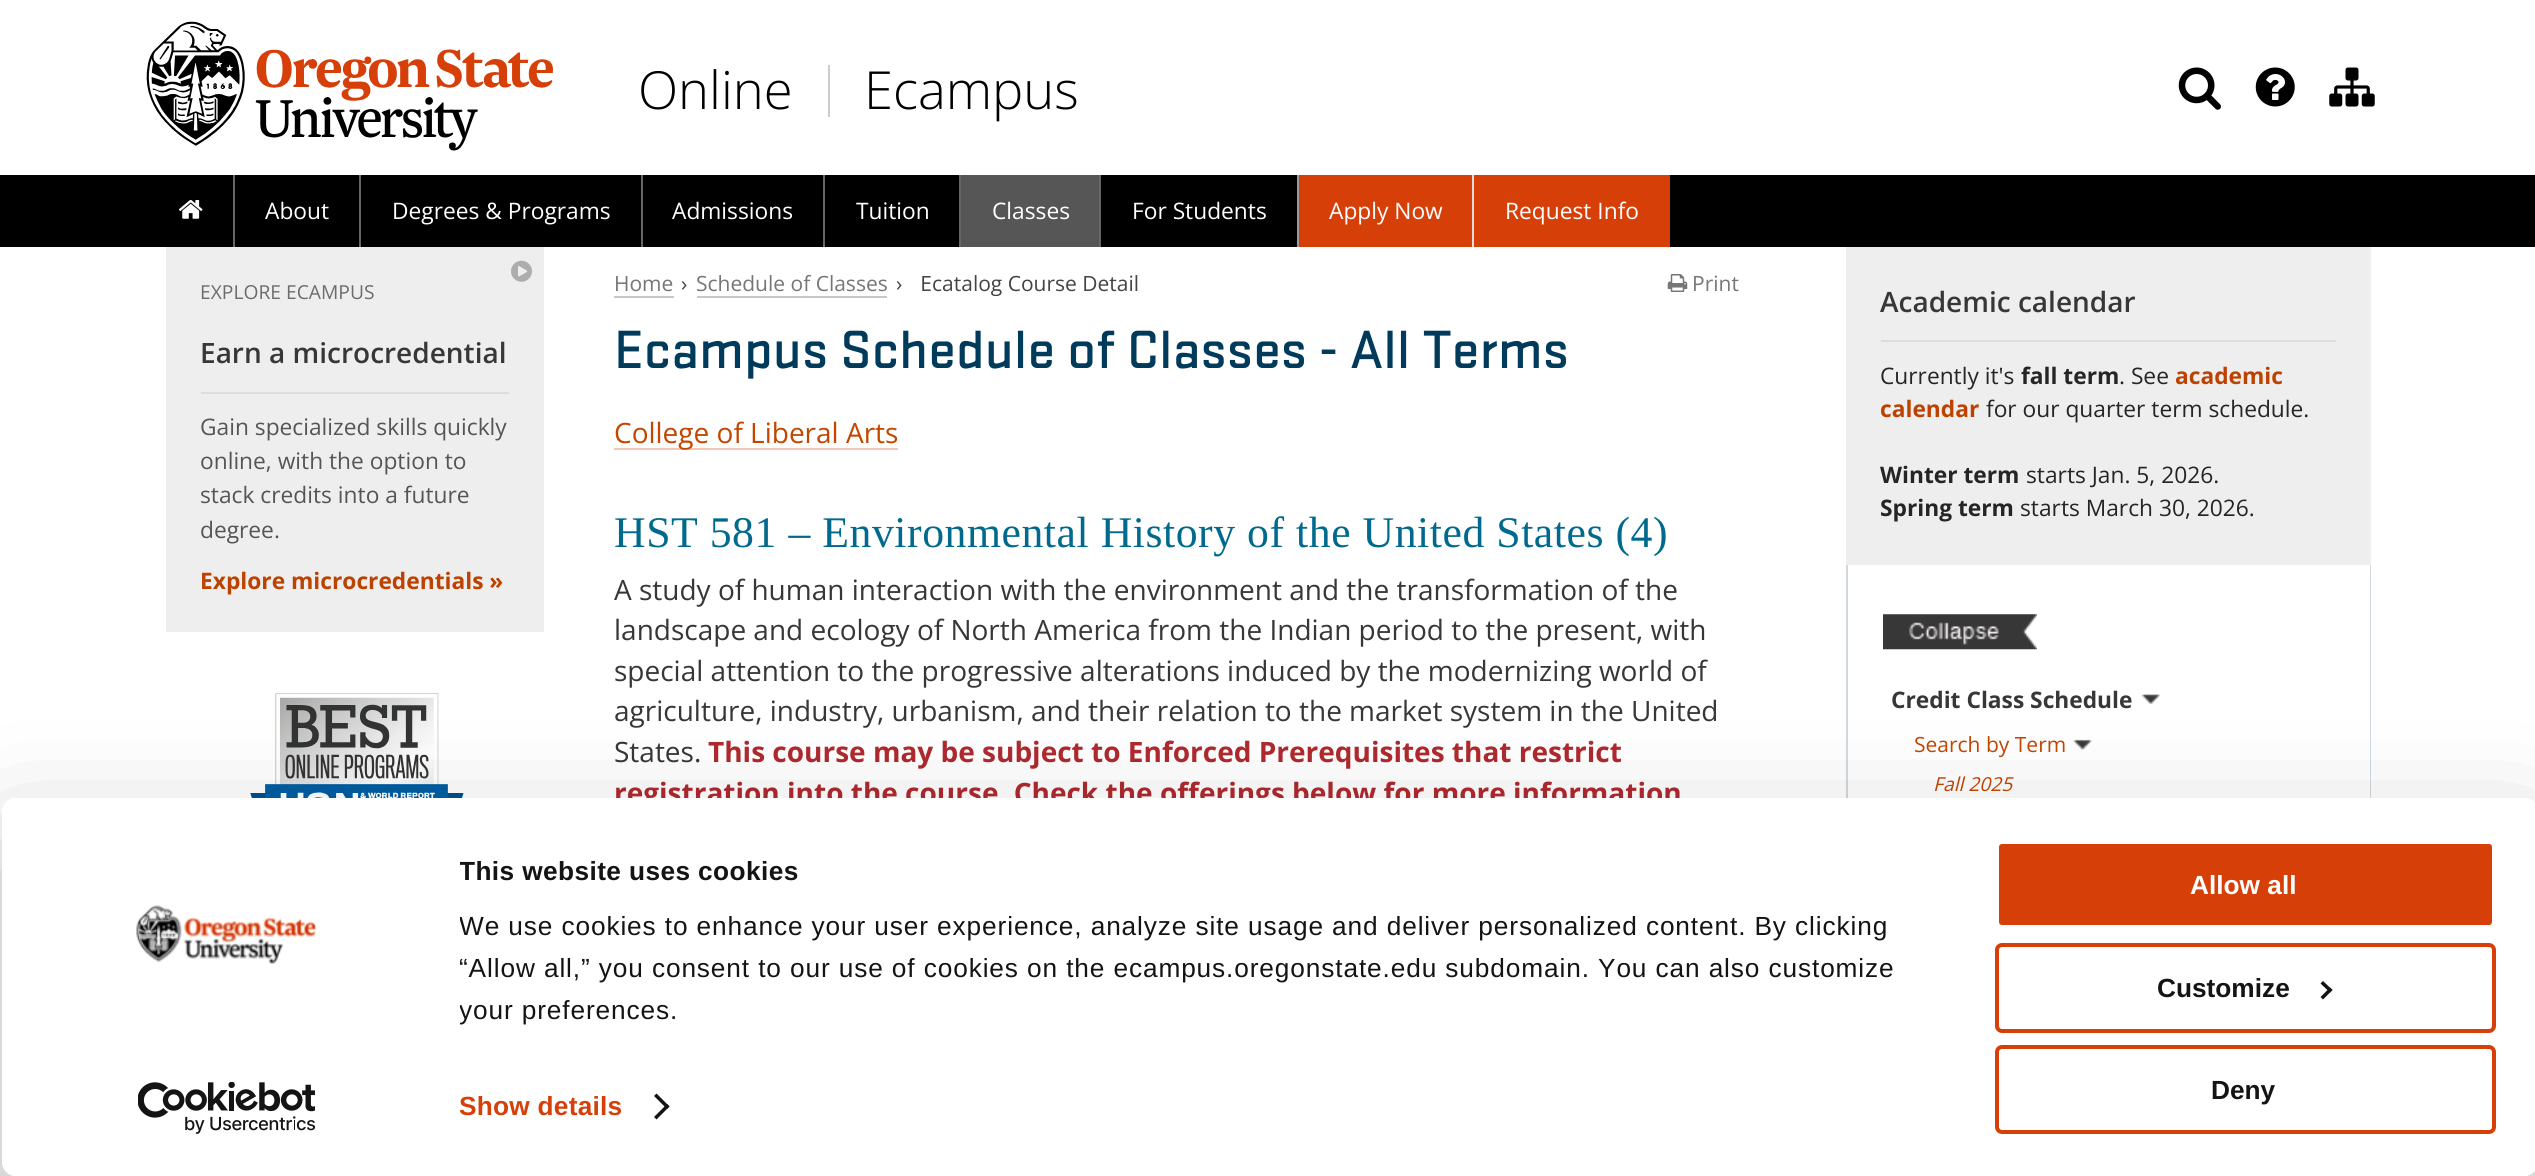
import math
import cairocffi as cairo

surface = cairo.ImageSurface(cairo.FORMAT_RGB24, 2535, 1176)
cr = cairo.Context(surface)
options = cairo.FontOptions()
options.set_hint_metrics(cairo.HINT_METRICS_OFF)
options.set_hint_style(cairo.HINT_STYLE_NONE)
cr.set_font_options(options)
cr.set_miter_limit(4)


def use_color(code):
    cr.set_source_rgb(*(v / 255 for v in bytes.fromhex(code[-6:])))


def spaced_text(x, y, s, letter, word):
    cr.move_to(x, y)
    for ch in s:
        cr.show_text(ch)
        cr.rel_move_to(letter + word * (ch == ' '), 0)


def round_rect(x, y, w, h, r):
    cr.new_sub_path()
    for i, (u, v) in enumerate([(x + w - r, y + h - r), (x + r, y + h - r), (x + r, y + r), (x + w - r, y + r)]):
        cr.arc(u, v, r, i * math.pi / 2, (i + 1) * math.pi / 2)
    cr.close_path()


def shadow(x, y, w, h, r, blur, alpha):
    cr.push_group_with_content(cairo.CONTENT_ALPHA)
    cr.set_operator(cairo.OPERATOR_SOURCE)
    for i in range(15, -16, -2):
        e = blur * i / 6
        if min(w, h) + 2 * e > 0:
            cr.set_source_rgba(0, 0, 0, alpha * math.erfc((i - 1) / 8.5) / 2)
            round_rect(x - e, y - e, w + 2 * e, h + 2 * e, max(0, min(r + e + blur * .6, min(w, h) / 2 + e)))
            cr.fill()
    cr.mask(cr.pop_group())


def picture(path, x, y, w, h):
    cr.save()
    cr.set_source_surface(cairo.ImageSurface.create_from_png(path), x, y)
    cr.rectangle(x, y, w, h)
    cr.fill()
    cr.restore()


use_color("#ffffff")
cr.paint()
picture("img1.png", 2178, 67, 43, 43)
picture("img2.png", 2255, 67, 40, 40)
picture("img3.png", 2329, 67, 46, 40)
picture("img4.png", 146, 21, 407, 130)
cr.select_font_face("Open Sans Light")
cr.set_font_size(52.5)
use_color("#000000")
cr.move_to(638, 109)
cr.show_text("Online")
use_color("#cccccc")
cr.rectangle(828, 65, 2, 52)
cr.fill()
use_color("#000000")
cr.move_to(864, 109)
cr.show_text("Ecampus")
cr.rectangle(0, 175, 2535, 72)
cr.fill()
picture("img5.png", 178, 200, 25, 19)
use_color("#666666")
cr.rectangle(233, 175, 2, 72)
cr.fill()
cr.select_font_face("Open Sans")
cr.set_font_size(22.75)
use_color("#ffffff")
cr.move_to(265, 219)
cr.show_text("About")
use_color("#666666")
cr.rectangle(359, 175, 2, 72)
cr.fill()
use_color("#ffffff")
cr.move_to(392, 219)
cr.show_text("Degrees & Programs")
use_color("#666666")
cr.rectangle(641, 175, 2, 72)
cr.fill()
use_color("#ffffff")
cr.move_to(672, 219)
cr.show_text("Admissions")
use_color("#666666")
cr.rectangle(823, 175, 2, 72)
cr.fill()
use_color("#ffffff")
cr.move_to(856, 219)
cr.show_text("Tuition")
use_color("#565656")
cr.rectangle(961, 175, 138, 72)
cr.fill()
use_color("#666666")
cr.rectangle(959, 175, 2, 72)
cr.fill()
use_color("#ffffff")
cr.move_to(992, 219)
cr.show_text("Classes")
use_color("#666666")
cr.rectangle(1099, 175, 2, 72)
cr.fill()
use_color("#ffffff")
cr.move_to(1132, 219)
cr.show_text("For Students")
use_color("#999999")
cr.rectangle(1297, 175, 2, 72)
cr.fill()
use_color("#d73f09")
cr.rectangle(1299, 175, 173, 72)
cr.fill()
use_color("#ffffff")
cr.move_to(1329, 219)
cr.show_text("Apply Now")
use_color("#dddddd")
cr.rectangle(1472, 175, 2, 72)
cr.fill()
use_color("#d73f09")
cr.rectangle(1474, 175, 196, 72)
cr.fill()
use_color("#ffffff")
cr.move_to(1505, 219)
cr.show_text("Request Info")
use_color("#eeeeee")
cr.rectangle(166, 247, 378, 385)
cr.fill()
picture("img6.png", 511, 260, 21, 22)
cr.set_font_size(19.25)
use_color("#6c6c6c")
cr.move_to(200, 299)
cr.show_text("EXPLORE ECAMPUS")
use_color("#dddddd")
cr.rectangle(201, 392, 308, 2)
cr.fill()
cr.select_font_face("Open Sans SemiBold")
cr.set_font_size(28)
use_color("#373737")
cr.move_to(200, 363)
cr.show_text("Earn a microcredential")
cr.select_font_face("Open Sans")
cr.set_font_size(22.75)
use_color("#555555")
cr.move_to(200, 435)
cr.show_text("Gain specialized skills quickly")
cr.move_to(200, 469)
cr.show_text("online, with the option to")
cr.move_to(200, 503)
cr.show_text("stack credits into a future")
cr.move_to(200, 538)
cr.show_text("degree.")
cr.select_font_face("Open Sans", cairo.FONT_SLANT_NORMAL, cairo.FONT_WEIGHT_BOLD)
use_color("#bd4200")
cr.move_to(200, 589)
cr.show_text("Explore microcredentials »")
picture("img7.png", 250, 693, 214, 105)
cr.select_font_face("Open Sans")
cr.set_font_size(21)
use_color("#767676")
cr.move_to(614, 291)
cr.show_text("Home")
use_color("#c8c8c8")
cr.rectangle(614, 296, 60, 2)
cr.fill()
use_color("#444444")
cr.move_to(681, 291)
cr.show_text("›")
use_color("#767676")
cr.move_to(696, 291)
cr.show_text("Schedule of Classes")
use_color("#c8c8c8")
cr.rectangle(697, 296, 190, 2)
cr.fill()
use_color("#444444")
cr.move_to(896, 291)
cr.show_text("›  Ecatalog Course Detail")
picture("img8.png", 1667, 274, 21, 18)
use_color("#767676")
cr.move_to(1692, 291)
cr.show_text("Print")
cr.select_font_face("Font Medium")
cr.set_font_size(56)
use_color("#003b5c")
cr.move_to(614, 368)
cr.show_text("Ecampus Schedule of Classes - All Terms")
use_color("#f3c5b5")
cr.rectangle(614, 448, 284, 2)
cr.fill()
cr.select_font_face("Open Sans")
cr.set_font_size(28)
use_color("#c34500")
cr.move_to(614, 443)
cr.show_text("College of Liberal Arts")
cr.select_font_face("Liberation Serif")
cr.set_font_size(43.75)
use_color("#006a8e")
spaced_text(614, 547, "HST 581 – Environmental History of the United States (4)", 0.53, 0)
cr.select_font_face("Open Sans")
cr.set_font_size(28)
use_color("#373737")
cr.move_to(614, 600)
cr.show_text("A study of human interaction with the environment and the transformation of the")
cr.move_to(614, 640)
cr.show_text("landscape and ecology of North America from the Indian period to the present, with")
cr.move_to(614, 681)
cr.show_text("special attention to the progressive alterations induced by the modernizing world of")
cr.move_to(614, 721)
cr.show_text("agriculture, industry, urbanism, and their relation to the market system in the United")
cr.move_to(614, 762)
cr.show_text("States.")
cr.select_font_face("Open Sans", cairo.FONT_SLANT_NORMAL, cairo.FONT_WEIGHT_BOLD)
use_color("#af292e")
cr.move_to(708, 762)
cr.show_text("This course may be subject to Enforced Prerequisites that restrict")
cr.move_to(614, 803)
cr.show_text("registration into the course. Check the offerings below for more information")
use_color("#eeeeee")
cr.rectangle(1846, 247, 525, 318)
cr.fill()
use_color("#dddddd")
cr.rectangle(1881, 340, 455, 2)
cr.fill()
cr.select_font_face("Open Sans SemiBold")
use_color("#373737")
cr.move_to(1880, 312)
cr.show_text("Academic calendar")
cr.select_font_face("Open Sans")
cr.set_font_size(22.75)
use_color("#252525")
cr.move_to(1880, 384)
cr.show_text("Currently it's")
cr.select_font_face("Open Sans", cairo.FONT_SLANT_NORMAL, cairo.FONT_WEIGHT_BOLD)
cr.move_to(2021, 384)
cr.show_text("fall term")
cr.select_font_face("Open Sans")
cr.move_to(2119, 384)
cr.show_text(". See")
cr.select_font_face("Open Sans", cairo.FONT_SLANT_NORMAL, cairo.FONT_WEIGHT_BOLD)
use_color("#bd4200")
cr.move_to(2175, 384)
cr.show_text("academic")
cr.move_to(1880, 417)
cr.show_text("calendar")
cr.select_font_face("Open Sans")
use_color("#252525")
cr.move_to(1986, 417)
cr.show_text("for our quarter term schedule.")
cr.select_font_face("Open Sans", cairo.FONT_SLANT_NORMAL, cairo.FONT_WEIGHT_BOLD)
cr.move_to(1880, 483)
cr.show_text("Winter term")
cr.select_font_face("Open Sans")
cr.move_to(2026, 483)
cr.show_text("starts Jan. 5, 2026.")
cr.select_font_face("Open Sans", cairo.FONT_SLANT_NORMAL, cairo.FONT_WEIGHT_BOLD)
cr.move_to(1880, 516)
cr.show_text("Spring term")
cr.select_font_face("Open Sans")
cr.move_to(2020, 516)
cr.show_text("starts March 30, 2026.")
use_color("#d1d9df")
cr.set_fill_rule(cairo.FILL_RULE_EVEN_ODD)
cr.new_path()
cr.move_to(1846, 565)
cr.line_to(2371, 565)
cr.line_to(2371, 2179)
cr.line_to(1855, 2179)
cr.curve_to(1850, 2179, 1846, 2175, 1846, 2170)
cr.close_path()
cr.move_to(1848, 565)
cr.line_to(2370, 565)
cr.line_to(2370, 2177)
cr.line_to(1855, 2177)
cr.curve_to(1851, 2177, 1848, 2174, 1848, 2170)
cr.close_path()
cr.fill()
picture("img9.png", 1883, 614, 154, 36)
cr.select_font_face("Open Sans", cairo.FONT_SLANT_NORMAL, cairo.FONT_WEIGHT_BOLD)
use_color("#373737")
cr.move_to(1891, 708)
cr.show_text("Credit Class Schedule")
picture("img10.png", 2141, 694, 19, 10)
cr.select_font_face("Open Sans")
cr.set_font_size(21)
use_color("#c34500")
cr.move_to(1914, 752)
cr.show_text("Search by Term")
picture("img11.png", 2073, 739, 19, 11)
cr.select_font_face("Open Sans", cairo.FONT_SLANT_ITALIC)
cr.set_font_size(19.25)
cr.move_to(1933, 791)
cr.show_text("Fall 2025")
cr.save()
cr.new_path()
cr.move_to(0, 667)
cr.line_to(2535, 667)
cr.line_to(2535, 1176)
cr.line_to(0, 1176)
cr.close_path()
cr.move_to(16, 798)
cr.line_to(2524, 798)
cr.curve_to(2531.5, 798, 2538, 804.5, 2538, 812)
cr.line_to(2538, 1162)
cr.curve_to(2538, 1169.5, 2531.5, 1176, 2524, 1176)
cr.line_to(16, 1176)
cr.curve_to(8.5, 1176, 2, 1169.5, 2, 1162)
cr.line_to(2, 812)
cr.curve_to(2, 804.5, 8.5, 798, 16, 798)
cr.close_path()
cr.clip()
use_color("#000000")
shadow(2, 851, 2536, 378, 14, 61, 0.3)
cr.restore()
use_color("#ffffff")
round_rect(2, 798, 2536, 378, 14)
cr.fill()
picture("img12.png", 136, 905, 181, 59)
picture("img13.png", 138, 1082, 177, 52)
cr.save()
cr.set_fill_rule(cairo.FILL_RULE_WINDING)
cr.rectangle(460, 851, 1525, 180)
cr.clip()
cr.select_font_face("Liberation Sans", cairo.FONT_SLANT_NORMAL, cairo.FONT_WEIGHT_BOLD)
cr.set_font_size(26.25)
use_color("#141414")
spaced_text(459, 880, "This website uses cookies", 0.4, 0)
cr.select_font_face("Liberation Sans")
spaced_text(459, 935, "We use cookies to enhance your user experience, analyze site usage and deliver personalized content. By clicking", 0.88, 0)
spaced_text(459, 977, "“Allow all,” you consent to our use of cookies on the ecampus.oregonstate.edu subdomain. You can also customize", 0.88, 0)
spaced_text(459, 1019, "your preferences.", 0.88, 0)
cr.restore()
cr.select_font_face("Liberation Sans", cairo.FONT_SLANT_NORMAL, cairo.FONT_WEIGHT_BOLD)
cr.set_font_size(26.25)
use_color("#d73f09")
spaced_text(459, 1115, "Show details", 0.25, 0)
use_color("#141414")
cr.set_fill_rule(cairo.FILL_RULE_WINDING)
cr.new_path()
cr.move_to(656.5, 1093.5)
cr.line_to(669.5, 1106.5)
cr.line_to(667, 1109)
cr.line_to(654, 1096)
cr.close_path()
cr.fill()
cr.new_path()
cr.move_to(667, 1104)
cr.line_to(669.5, 1106.5)
cr.line_to(656.5, 1119.5)
cr.line_to(654, 1117)
cr.close_path()
cr.fill()
use_color("#d73f09")
round_rect(1997, 842, 497, 85, 5)
cr.fill_preserve()
use_color("#ffffff")
cr.set_line_width(4)
cr.stroke()
cr.move_to(2190, 894)
cr.show_text("Allow all")
round_rect(1997, 945, 497, 86, 5)
use_color("#d73f09")
cr.stroke()
use_color("#141414")
cr.move_to(2157, 997)
cr.show_text("Customize")
cr.new_path()
cr.move_to(2323, 981)
cr.line_to(2332.5, 990)
cr.line_to(2330, 992.5)
cr.line_to(2320.5, 983.5)
cr.close_path()
cr.fill()
cr.new_path()
cr.move_to(2330, 987.5)
cr.line_to(2332.5, 990)
cr.line_to(2323, 999.5)
cr.line_to(2320.5, 997)
cr.close_path()
cr.fill()
round_rect(1997, 1047, 497, 85, 5)
use_color("#d73f09")
cr.stroke()
use_color("#141414")
cr.move_to(2211, 1099)
cr.show_text("Deny")
surface.write_to_png("result.png")
